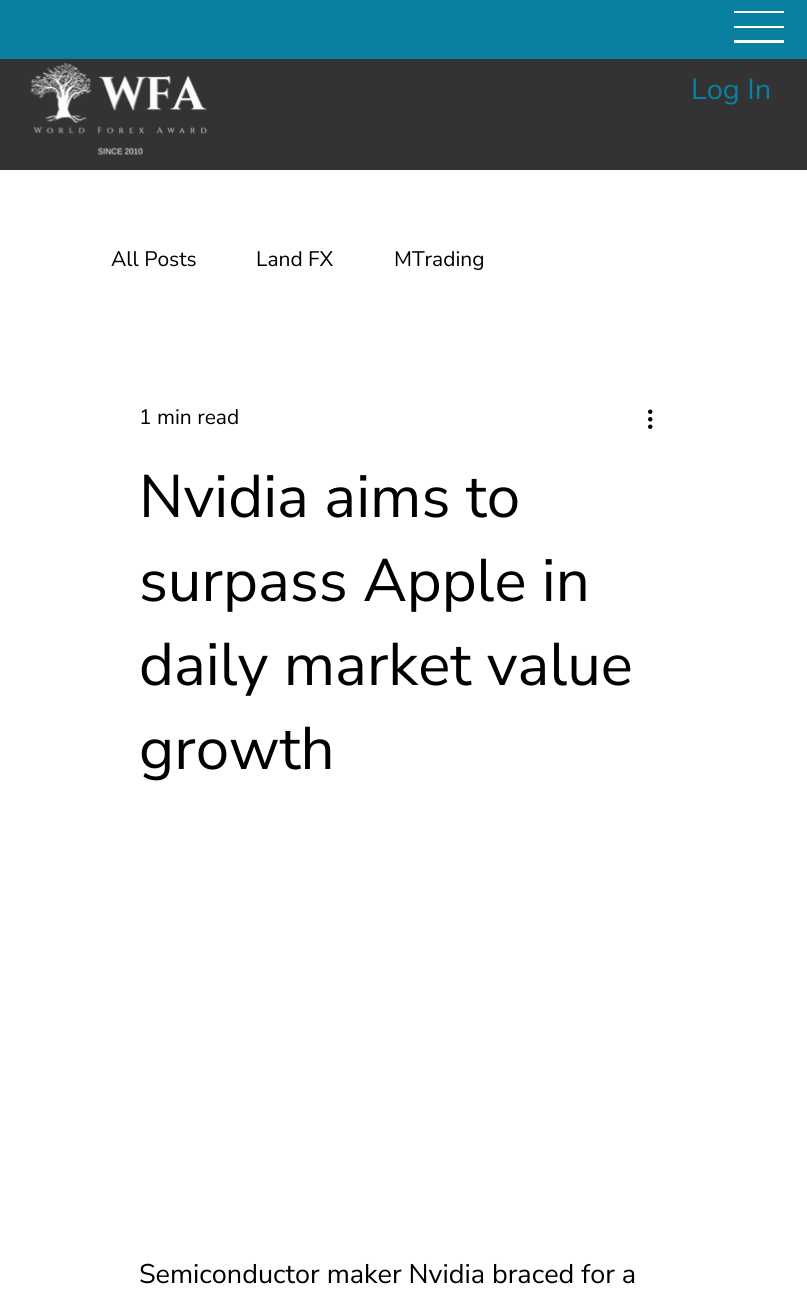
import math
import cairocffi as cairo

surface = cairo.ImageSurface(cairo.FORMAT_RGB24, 807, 1299)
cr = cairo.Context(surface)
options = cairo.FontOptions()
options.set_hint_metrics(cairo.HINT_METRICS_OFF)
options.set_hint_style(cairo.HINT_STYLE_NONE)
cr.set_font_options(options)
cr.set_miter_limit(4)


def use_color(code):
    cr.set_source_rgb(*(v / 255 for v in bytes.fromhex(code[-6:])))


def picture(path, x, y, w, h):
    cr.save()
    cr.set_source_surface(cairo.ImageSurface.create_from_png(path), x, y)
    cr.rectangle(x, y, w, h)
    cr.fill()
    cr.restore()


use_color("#333333")
cr.paint()
use_color("#0980a2")
cr.rectangle(0, 0, 807, 59)
cr.fill()
use_color("#ffffff")
cr.rectangle(734, 11, 50, 2)
cr.fill()
cr.rectangle(734, 26, 50, 2)
cr.fill()
cr.rectangle(734, 40, 50, 3)
cr.fill()
picture("img1.png", 30, 63, 177, 92)
cr.select_font_face("Nunito Sans")
cr.set_font_size(29)
use_color("#0980a2")
cr.move_to(691, 99)
cr.show_text("Log In")
use_color("#ffffff")
cr.rectangle(0, 170, 807, 1129)
cr.fill()
cr.set_font_size(21)
use_color("#000000")
cr.move_to(111, 266)
cr.show_text("All Posts")
cr.move_to(256, 266)
cr.show_text("Land FX")
cr.move_to(394, 266)
cr.show_text("MTrading")
cr.move_to(139, 424)
cr.show_text("1 min read")
picture("img2.png", 648, 409, 5, 20)
cr.set_font_size(60)
cr.move_to(139, 517)
cr.show_text("Nvidia aims to")
cr.move_to(139, 601)
cr.show_text("surpass Apple in")
cr.move_to(139, 685)
cr.show_text("daily market value")
cr.move_to(139, 769)
cr.show_text("growth")
cr.set_font_size(27)
cr.move_to(139, 1283)
cr.show_text("Semiconductor maker Nvidia braced for a")
surface.write_to_png("result.png")
